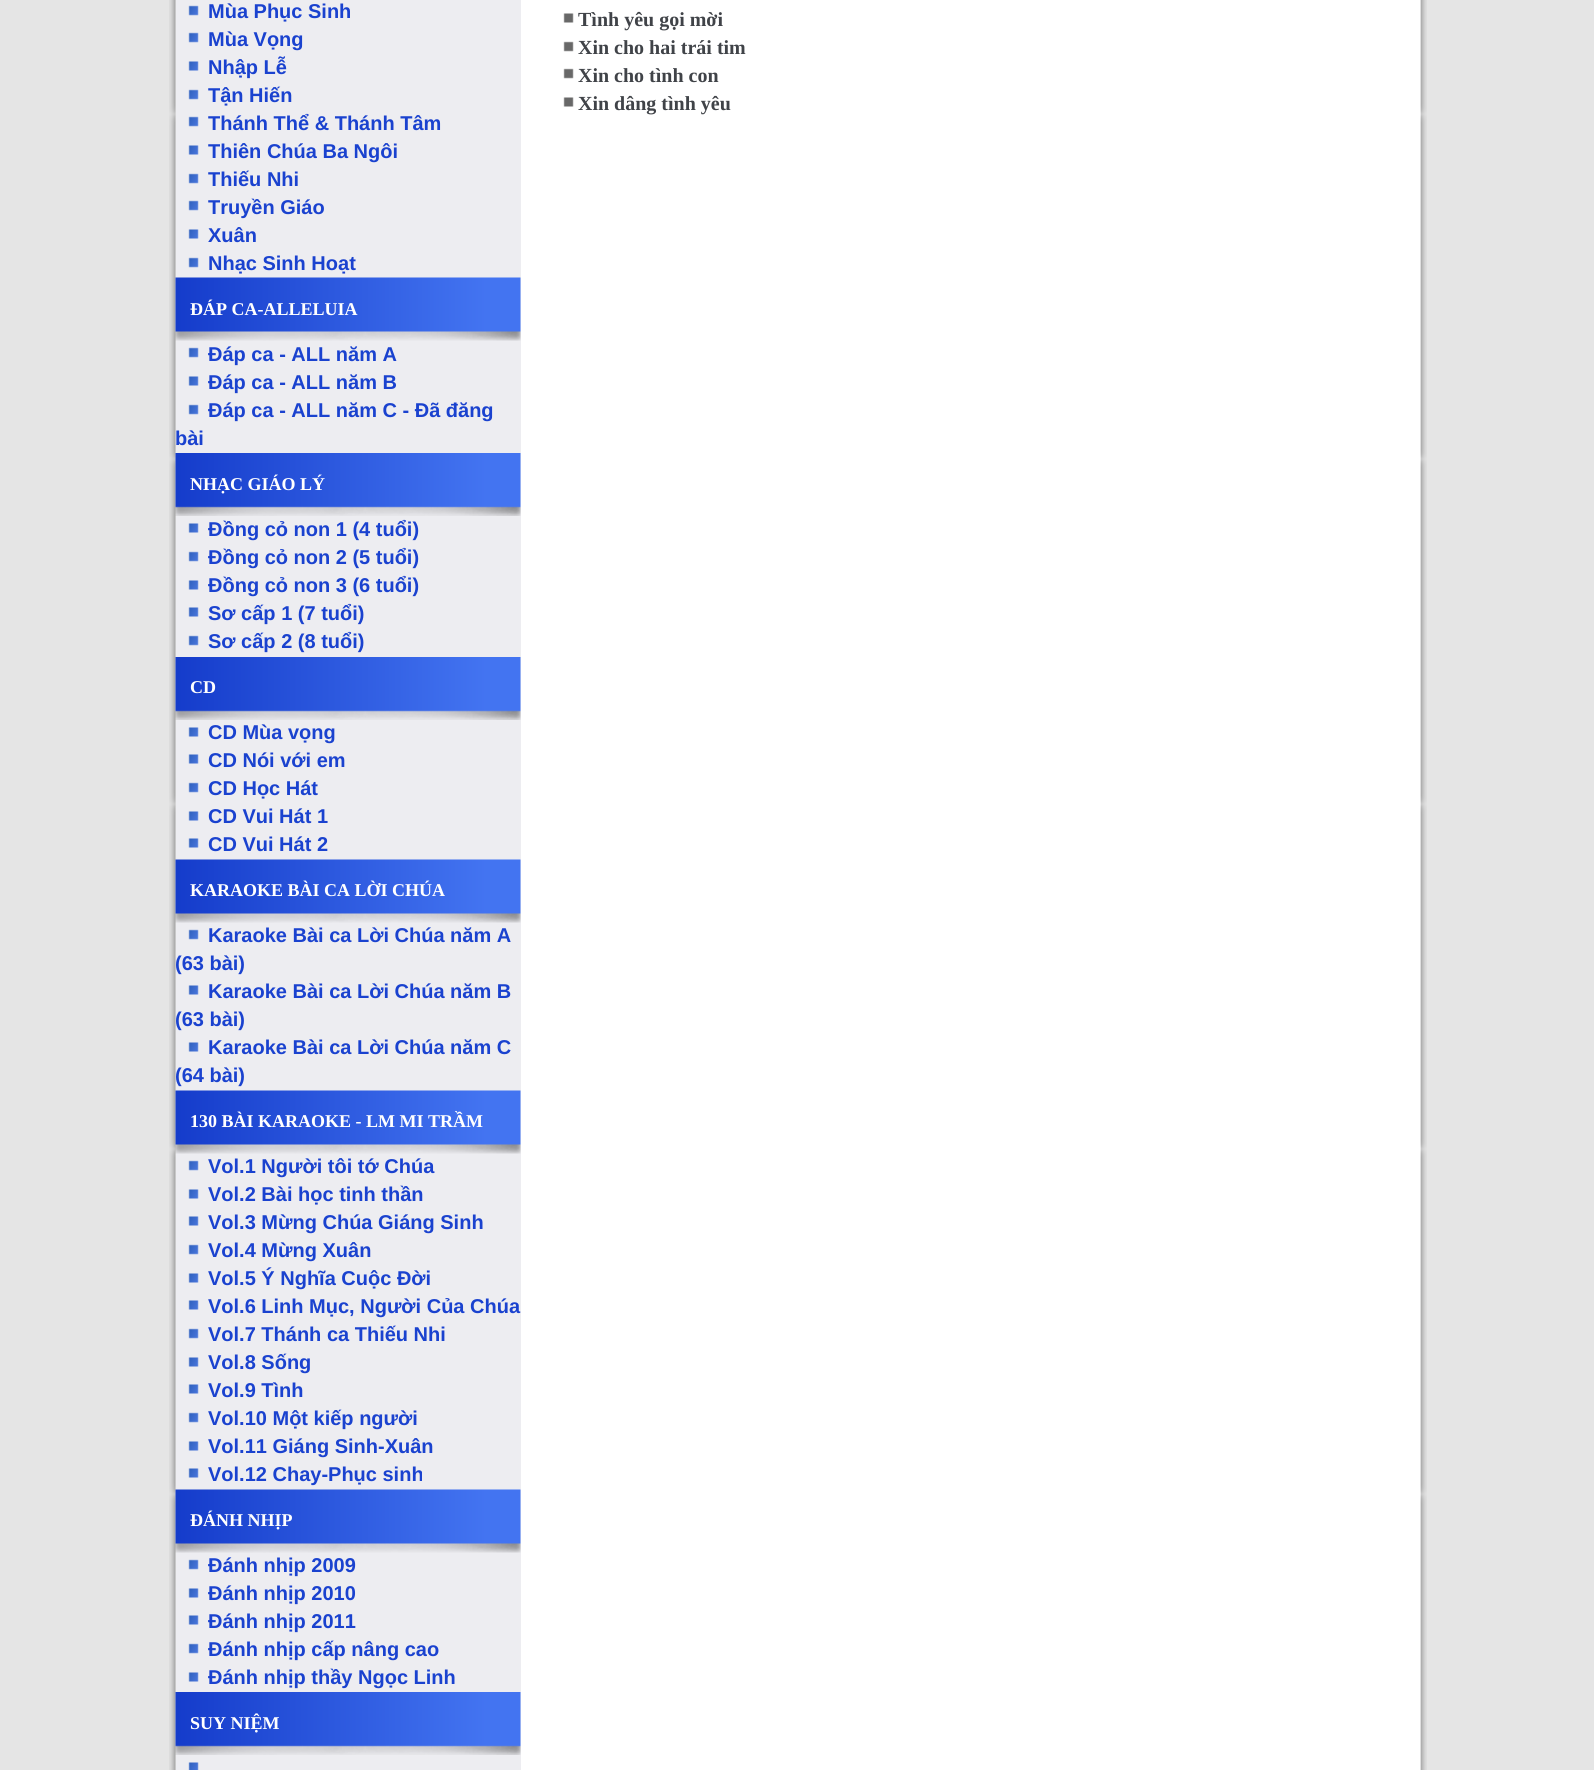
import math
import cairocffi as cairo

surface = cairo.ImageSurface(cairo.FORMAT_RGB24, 1594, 1770)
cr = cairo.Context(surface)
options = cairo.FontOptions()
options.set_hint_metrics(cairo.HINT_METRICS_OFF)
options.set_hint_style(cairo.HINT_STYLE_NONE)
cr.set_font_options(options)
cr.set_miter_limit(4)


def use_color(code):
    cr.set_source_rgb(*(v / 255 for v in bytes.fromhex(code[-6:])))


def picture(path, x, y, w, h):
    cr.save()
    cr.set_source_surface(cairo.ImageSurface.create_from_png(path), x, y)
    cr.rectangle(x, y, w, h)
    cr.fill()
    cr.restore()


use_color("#e5e5e5")
cr.paint()
picture("img1.png", 169, 0, 7, 1770)
use_color("#ededf1")
cr.rectangle(176, 0, 345, 1770)
cr.fill()
picture("img2.png", 188, 5, 11, 11)
cr.select_font_face("Liberation Sans", cairo.FONT_SLANT_NORMAL, cairo.FONT_WEIGHT_BOLD)
cr.set_font_size(20)
use_color("#1a42cf")
cr.move_to(208, 18)
cr.show_text("Mùa Phục Sinh")
picture("img2.png", 188, 32, 11, 11)
cr.move_to(208, 46)
cr.show_text("Mùa Vọng")
picture("img3.png", 188, 61, 11, 10)
cr.move_to(208, 74)
cr.show_text("Nhập Lễ")
picture("img2.png", 188, 89, 11, 11)
cr.move_to(208, 102)
cr.show_text("Tận Hiến")
picture("img2.png", 188, 116, 11, 11)
cr.move_to(208, 130)
cr.show_text("Thánh Thể & Thánh Tâm")
picture("img3.png", 188, 145, 11, 10)
cr.move_to(208, 158)
cr.show_text("Thiên Chúa Ba Ngôi")
picture("img2.png", 188, 173, 11, 11)
cr.move_to(208, 186)
cr.show_text("Thiếu Nhi")
picture("img2.png", 188, 200, 11, 11)
cr.move_to(208, 214)
cr.show_text("Truyền Giáo")
picture("img3.png", 188, 229, 11, 10)
cr.move_to(208, 242)
cr.show_text("Xuân")
picture("img2.png", 188, 257, 11, 11)
cr.move_to(208, 270)
cr.show_text("Nhạc Sinh Hoạt")
picture("img4.png", 175, 277, 346, 64)
cr.select_font_face("Liberation Serif", cairo.FONT_SLANT_NORMAL, cairo.FONT_WEIGHT_BOLD)
cr.set_font_size(18)
use_color("#ffffff")
cr.move_to(190, 315)
cr.show_text("ĐÁP CA-ALLELUIA")
picture("img2.png", 188, 347, 11, 11)
cr.select_font_face("Liberation Sans", cairo.FONT_SLANT_NORMAL, cairo.FONT_WEIGHT_BOLD)
cr.set_font_size(20)
use_color("#1a42cf")
cr.move_to(208, 361)
cr.show_text("Đáp ca - ALL năm A")
picture("img3.png", 188, 376, 11, 10)
cr.move_to(208, 389)
cr.show_text("Đáp ca - ALL năm B")
picture("img2.png", 188, 404, 11, 11)
cr.move_to(208, 417)
cr.show_text("Đáp ca - ALL năm C - Đã đăng")
cr.move_to(175, 445)
cr.show_text("bài")
picture("img5.png", 175, 453, 346, 63)
cr.select_font_face("Liberation Serif", cairo.FONT_SLANT_NORMAL, cairo.FONT_WEIGHT_BOLD)
cr.set_font_size(18)
use_color("#ffffff")
cr.move_to(190, 490)
cr.show_text("NHẠC GIÁO LÝ")
picture("img3.png", 188, 523, 11, 10)
cr.select_font_face("Liberation Sans", cairo.FONT_SLANT_NORMAL, cairo.FONT_WEIGHT_BOLD)
cr.set_font_size(20)
use_color("#1a42cf")
cr.move_to(208, 536)
cr.show_text("Đồng cỏ non 1 (4 tuổi)")
picture("img2.png", 188, 551, 11, 11)
cr.move_to(208, 564)
cr.show_text("Đồng cỏ non 2 (5 tuổi)")
picture("img3.png", 188, 580, 11, 10)
cr.move_to(208, 592)
cr.show_text("Đồng cỏ non 3 (6 tuổi)")
picture("img3.png", 188, 607, 11, 10)
cr.move_to(208, 620)
cr.show_text("Sơ cấp 1 (7 tuổi)")
picture("img2.png", 188, 635, 11, 11)
cr.move_to(208, 648)
cr.show_text("Sơ cấp 2 (8 tuổi)")
picture("img6.png", 175, 657, 346, 63)
cr.select_font_face("Liberation Serif", cairo.FONT_SLANT_NORMAL, cairo.FONT_WEIGHT_BOLD)
cr.set_font_size(18)
use_color("#ffffff")
cr.move_to(190, 693)
cr.show_text("CD")
picture("img3.png", 188, 727, 11, 10)
cr.select_font_face("Liberation Sans", cairo.FONT_SLANT_NORMAL, cairo.FONT_WEIGHT_BOLD)
cr.set_font_size(20)
use_color("#1a42cf")
cr.move_to(208, 739)
cr.show_text("CD Mùa vọng")
picture("img3.png", 188, 754, 11, 10)
cr.move_to(208, 767)
cr.show_text("CD Nói với em")
picture("img2.png", 188, 782, 11, 11)
cr.move_to(208, 795)
cr.show_text("CD Học Hát")
picture("img3.png", 188, 811, 11, 10)
cr.move_to(208, 823)
cr.show_text("CD Vui Hát 1")
picture("img3.png", 188, 838, 11, 10)
cr.move_to(208, 851)
cr.show_text("CD Vui Hát 2")
picture("img4.png", 175, 859, 346, 64)
cr.select_font_face("Liberation Serif", cairo.FONT_SLANT_NORMAL, cairo.FONT_WEIGHT_BOLD)
cr.set_font_size(18)
use_color("#ffffff")
cr.move_to(190, 896)
cr.show_text("KARAOKE BÀI CA LỜI CHÚA")
picture("img2.png", 188, 929, 11, 11)
cr.select_font_face("Liberation Sans", cairo.FONT_SLANT_NORMAL, cairo.FONT_WEIGHT_BOLD)
cr.set_font_size(20)
use_color("#1a42cf")
cr.move_to(208, 942)
cr.show_text("Karaoke Bài ca Lời Chúa năm A")
cr.move_to(175, 970)
cr.show_text("(63 bài)")
picture("img3.png", 188, 985, 11, 10)
cr.move_to(208, 998)
cr.show_text("Karaoke Bài ca Lời Chúa năm B")
cr.move_to(175, 1026)
cr.show_text("(63 bài)")
picture("img3.png", 188, 1042, 11, 10)
cr.move_to(208, 1054)
cr.show_text("Karaoke Bài ca Lời Chúa năm C")
cr.move_to(175, 1082)
cr.show_text("(64 bài)")
picture("img7.png", 175, 1090, 346, 64)
cr.select_font_face("Liberation Serif", cairo.FONT_SLANT_NORMAL, cairo.FONT_WEIGHT_BOLD)
cr.set_font_size(18)
use_color("#ffffff")
cr.move_to(190, 1127)
cr.show_text("130 BÀI KARAOKE - LM MI TRẦM")
picture("img2.png", 188, 1160, 11, 11)
cr.select_font_face("Liberation Sans", cairo.FONT_SLANT_NORMAL, cairo.FONT_WEIGHT_BOLD)
cr.set_font_size(20)
use_color("#1a42cf")
cr.move_to(208, 1173)
cr.show_text("Vol.1 Người tôi tớ Chúa")
picture("img3.png", 188, 1189, 11, 10)
cr.move_to(208, 1201)
cr.show_text("Vol.2 Bài học tinh thần")
picture("img3.png", 188, 1216, 11, 10)
cr.move_to(208, 1229)
cr.show_text("Vol.3 Mừng Chúa Giáng Sinh")
picture("img2.png", 188, 1244, 11, 11)
cr.move_to(208, 1257)
cr.show_text("Vol.4 Mừng Xuân")
picture("img3.png", 188, 1273, 11, 10)
cr.move_to(208, 1285)
cr.show_text("Vol.5 Ý Nghĩa Cuộc Đời")
picture("img3.png", 188, 1300, 11, 10)
cr.move_to(208, 1313)
cr.show_text("Vol.6 Linh Mục, Người Của Chúa")
picture("img2.png", 188, 1328, 11, 11)
cr.move_to(208, 1341)
cr.show_text("Vol.7 Thánh ca Thiếu Nhi")
picture("img3.png", 188, 1357, 11, 10)
cr.move_to(208, 1369)
cr.show_text("Vol.8 Sống")
picture("img3.png", 188, 1384, 11, 10)
cr.move_to(208, 1397)
cr.show_text("Vol.9 Tình")
picture("img2.png", 188, 1412, 11, 11)
cr.move_to(208, 1425)
cr.show_text("Vol.10 Một kiếp người")
picture("img3.png", 188, 1441, 11, 10)
cr.move_to(208, 1453)
cr.show_text("Vol.11 Giáng Sinh-Xuân")
picture("img3.png", 188, 1468, 11, 10)
cr.move_to(208, 1481)
cr.show_text("Vol.12 Chay-Phục sinh")
picture("img8.png", 175, 1489, 346, 64)
cr.select_font_face("Liberation Serif", cairo.FONT_SLANT_NORMAL, cairo.FONT_WEIGHT_BOLD)
cr.set_font_size(18)
use_color("#ffffff")
cr.move_to(190, 1526)
cr.show_text("ĐÁNH NHỊP")
picture("img2.png", 188, 1559, 11, 11)
cr.select_font_face("Liberation Sans", cairo.FONT_SLANT_NORMAL, cairo.FONT_WEIGHT_BOLD)
cr.set_font_size(20)
use_color("#1a42cf")
cr.move_to(208, 1572)
cr.show_text("Đánh nhịp 2009")
picture("img3.png", 188, 1588, 11, 10)
cr.move_to(208, 1600)
cr.show_text("Đánh nhịp 2010")
picture("img3.png", 188, 1615, 11, 10)
cr.move_to(208, 1628)
cr.show_text("Đánh nhịp 2011")
picture("img2.png", 188, 1643, 11, 11)
cr.move_to(208, 1656)
cr.show_text("Đánh nhịp cấp nâng cao")
picture("img3.png", 188, 1672, 11, 10)
cr.move_to(208, 1684)
cr.show_text("Đánh nhịp thầy Ngọc Linh")
picture("img6.png", 175, 1692, 346, 63)
cr.select_font_face("Liberation Serif", cairo.FONT_SLANT_NORMAL, cairo.FONT_WEIGHT_BOLD)
cr.set_font_size(18)
use_color("#ffffff")
cr.move_to(190, 1729)
cr.show_text("SUY NIỆM")
picture("img9.png", 188, 1762, 11, 8)
cr.rectangle(521, 0, 900, 1770)
cr.fill()
picture("img10.png", 563, 13, 11, 10)
cr.set_font_size(20)
use_color("#404348")
cr.move_to(578, 26)
cr.show_text("Tình yêu gọi mời")
picture("img11.png", 563, 41, 11, 11)
cr.move_to(578, 54)
cr.show_text("Xin cho hai trái tim")
picture("img11.png", 563, 68, 11, 11)
cr.move_to(578, 82)
cr.show_text("Xin cho tình con")
picture("img10.png", 563, 97, 11, 10)
cr.move_to(578, 110)
cr.show_text("Xin dâng tình yêu")
picture("img12.png", 1420, 0, 7, 1770)
surface.write_to_png("result.png")
